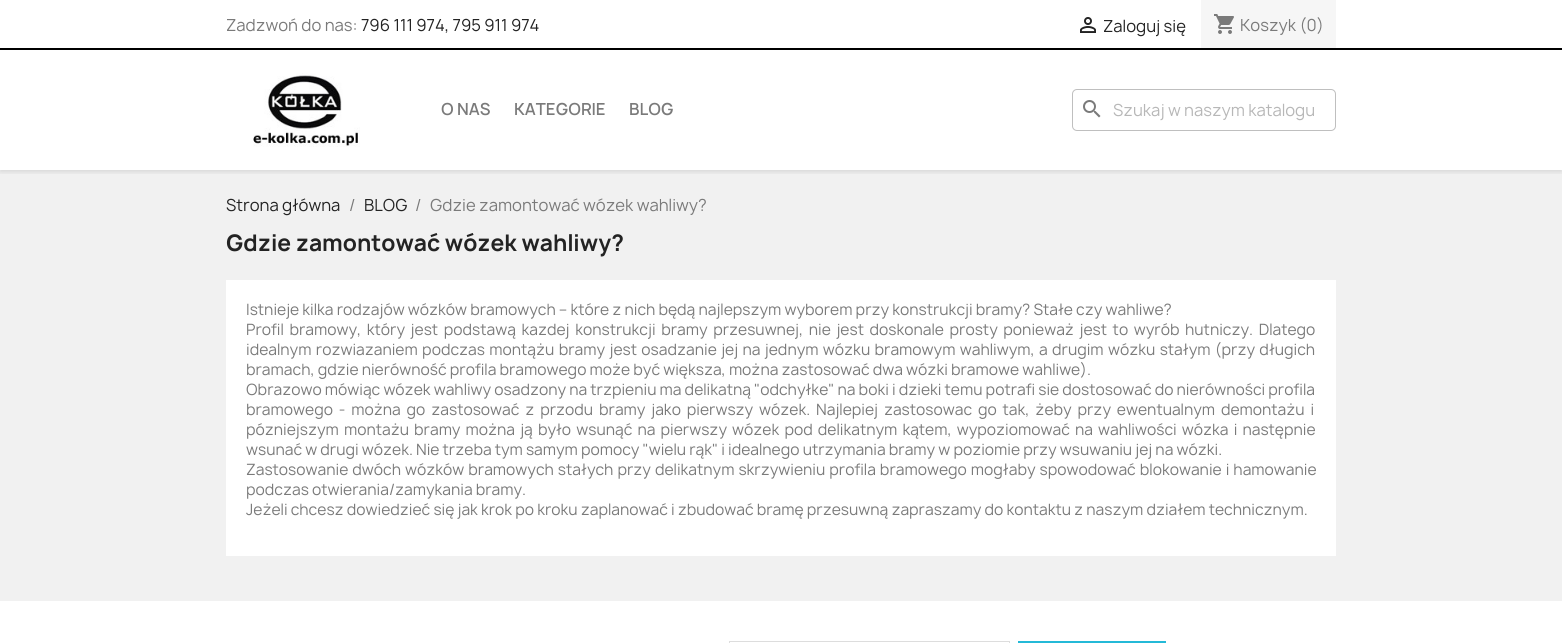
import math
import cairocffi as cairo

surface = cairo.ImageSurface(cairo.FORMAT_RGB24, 1562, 643)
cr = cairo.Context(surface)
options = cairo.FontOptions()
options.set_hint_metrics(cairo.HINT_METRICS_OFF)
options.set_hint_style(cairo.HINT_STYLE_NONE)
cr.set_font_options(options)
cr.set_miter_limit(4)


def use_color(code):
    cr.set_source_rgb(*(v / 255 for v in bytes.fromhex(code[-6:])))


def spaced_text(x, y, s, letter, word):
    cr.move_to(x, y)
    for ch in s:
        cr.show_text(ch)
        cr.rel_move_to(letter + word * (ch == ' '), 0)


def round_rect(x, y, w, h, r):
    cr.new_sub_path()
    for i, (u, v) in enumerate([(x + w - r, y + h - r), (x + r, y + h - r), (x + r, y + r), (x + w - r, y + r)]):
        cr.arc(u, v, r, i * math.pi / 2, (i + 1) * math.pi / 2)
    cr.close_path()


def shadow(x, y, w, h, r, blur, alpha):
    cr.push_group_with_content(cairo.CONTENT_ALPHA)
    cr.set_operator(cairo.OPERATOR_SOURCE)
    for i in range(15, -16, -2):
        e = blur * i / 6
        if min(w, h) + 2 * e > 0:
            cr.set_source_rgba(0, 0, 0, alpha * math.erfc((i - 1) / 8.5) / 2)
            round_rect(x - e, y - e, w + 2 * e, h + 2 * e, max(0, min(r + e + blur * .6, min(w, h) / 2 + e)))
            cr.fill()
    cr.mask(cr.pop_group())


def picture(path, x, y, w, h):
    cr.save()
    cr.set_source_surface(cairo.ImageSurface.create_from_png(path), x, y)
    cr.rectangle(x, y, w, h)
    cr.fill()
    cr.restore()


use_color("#ffffff")
cr.paint()
use_color("#f1f1f1")
cr.rectangle(0, 170, 1562, 431)
cr.fill()
cr.save()
cr.rectangle(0, 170, 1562, 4)
cr.clip()
use_color("#000000")
shadow(0, 2, 1562, 170, 0, 2.5, 0.11)
cr.restore()
use_color("#000000")
cr.rectangle(0, 48, 1562, 2)
cr.fill()
cr.select_font_face("Manrope")
cr.set_font_size(16)
use_color("#7a7a7a")
cr.move_to(226, 31)
cr.show_text("Zadzwoń do nas:")
use_color("#232323")
cr.move_to(361, 31)
cr.show_text("796 111 974, 795 911 974")
picture("img1.png", 1080, 17, 16, 16)
cr.move_to(1103, 32)
cr.show_text("Zaloguj się")
use_color("#f6f6f6")
cr.rectangle(1201, 0, 135, 48)
cr.fill()
picture("img2.png", 1214, 14, 20, 20)
use_color("#7a7a7a")
cr.move_to(1240, 31)
cr.show_text("Koszyk (0)")
picture("img3.png", 253, 73, 107, 74)
cr.select_font_face("Manrope SemiBold")
cr.move_to(441, 115)
cr.show_text("O NAS")
cr.move_to(514, 115)
cr.show_text("KATEGORIE")
cr.move_to(629, 115)
cr.show_text("BLOG")
round_rect(1072.5, 89.5, 263, 41, 4.5)
use_color("#bfbfbf")
cr.set_line_width(1)
cr.stroke()
picture("img4.png", 1083, 100, 18, 18)
cr.select_font_face("Manrope")
use_color("#b7b7b7")
cr.move_to(1113, 116)
cr.show_text("Szukaj w naszym katalogu")
use_color("#232323")
cr.move_to(226, 211)
cr.show_text("Strona główna")
use_color("#7a7a7a")
cr.move_to(349, 211)
cr.show_text("/")
use_color("#232323")
cr.move_to(364, 211)
cr.show_text("BLOG")
use_color("#7a7a7a")
cr.move_to(415, 211)
cr.show_text("/")
cr.move_to(430, 211)
cr.show_text("Gdzie zamontować wózek wahliwy?")
cr.select_font_face("Manrope", cairo.FONT_SLANT_NORMAL, cairo.FONT_WEIGHT_BOLD)
cr.set_font_size(22)
use_color("#232323")
cr.move_to(226, 251)
cr.show_text("Gdzie zamontować wózek wahliwy?")
use_color("#ffffff")
cr.rectangle(226, 280, 1110, 276)
cr.fill()
cr.select_font_face("Manrope")
cr.set_font_size(15)
use_color("#7a7a7a")
cr.move_to(246, 315)
cr.show_text("Istnieje kilka rodzajów wózków bramowych – które z nich będą najlepszym wyborem przy konstrukcji bramy? Stałe czy wahliwe?")
spaced_text(246, 335, "Profil bramowy, który jest podstawą kazdej konstrukcji bramy przesuwnej, nie jest doskonale prosty ponieważ jest to wyrób hutniczy. Dlatego", 0, 2.5)
spaced_text(246, 355, "idealnym rozwiazaniem podczas montążu bramy jest osadzanie jej na jednym wózku bramowym wahliwym, a drugim wózku stałym (przy długich", 0, 1.25)
cr.move_to(246, 375)
cr.show_text("bramach, gdzie nierówność profila bramowego może być większa, można zastosować dwa wózki bramowe wahliwe).")
cr.move_to(246, 395)
cr.show_text("Obrazowo mówiąc wózek wahliwy osadzony na trzpieniu ma delikatną \"odchyłke\" na boki i dzieki temu potrafi sie dostosować do nierówności profila")
spaced_text(246, 415, "bramowego - można go zastosować z przodu bramy jako pierwszy wózek. Najlepiej zastosowac go tak, żeby przy ewentualnym demontażu i", 0, 2.75)
spaced_text(246, 435, "pózniejszym montażu bramy można ją było wsunąć na pierwszy wózek pod delikatnym kątem, wypoziomować na wahliwości wózka i następnie", 0, 2)
cr.move_to(246, 455)
cr.show_text("wsunać w drugi wózek. Nie trzeba tym samym pomocy \"wielu rąk\" i idealnego utrzymania bramy w poziomie przy wsuwaniu jej na wózki.")
spaced_text(246, 475, "Zastosowanie dwóch wózków bramowych stałych przy delikatnym skrzywieniu profila bramowego mogłaby spowodować blokowanie i hamowanie", 0, 0.9)
cr.move_to(246, 495)
cr.show_text("podczas otwierania/zamykania bramy.")
cr.move_to(246, 515)
cr.show_text("Jeżeli chcesz dowiedzieć się jak krok po kroku zaplanować i zbudować bramę przesuwną zapraszamy do kontaktu z naszym działem technicznym.")
cr.rectangle(729.5, 641.5, 280, 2)
use_color("#dddddd")
cr.stroke()
use_color("#24b9d7")
cr.rectangle(1018, 641, 148, 2)
cr.fill()
surface.write_to_png("result.png")
